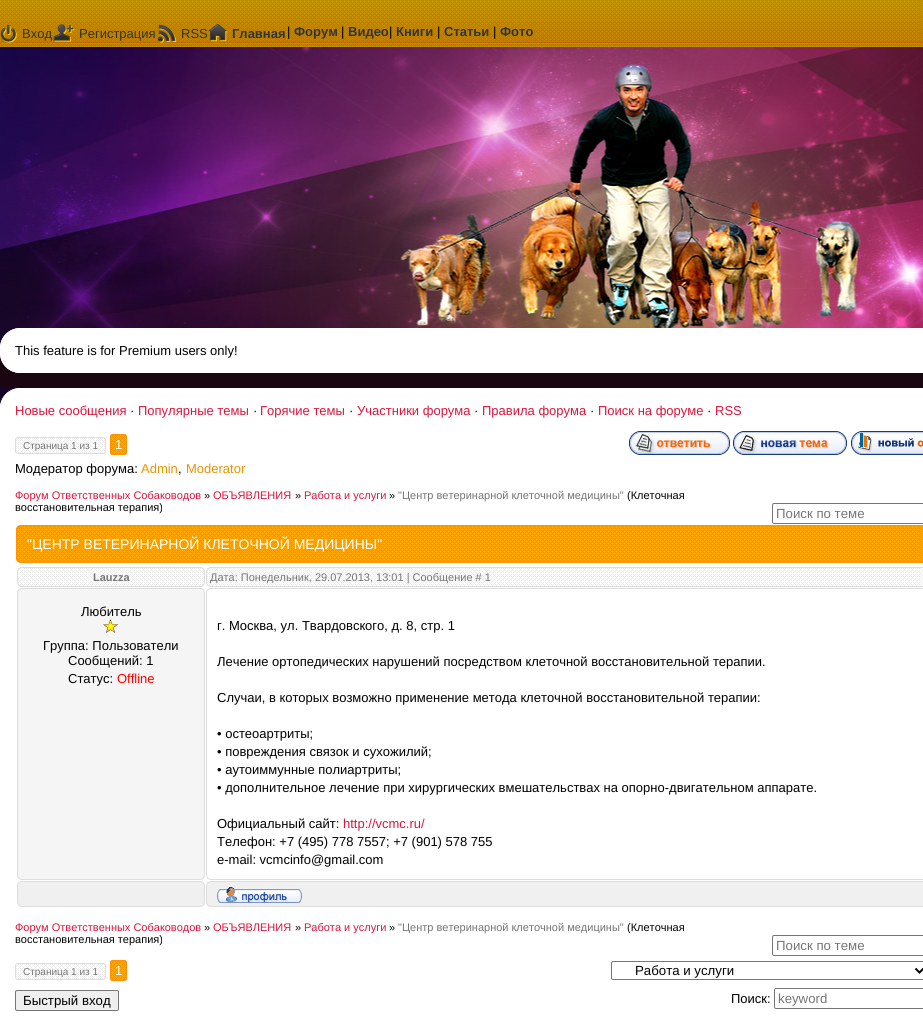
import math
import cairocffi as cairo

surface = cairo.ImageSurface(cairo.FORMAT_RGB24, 923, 1016)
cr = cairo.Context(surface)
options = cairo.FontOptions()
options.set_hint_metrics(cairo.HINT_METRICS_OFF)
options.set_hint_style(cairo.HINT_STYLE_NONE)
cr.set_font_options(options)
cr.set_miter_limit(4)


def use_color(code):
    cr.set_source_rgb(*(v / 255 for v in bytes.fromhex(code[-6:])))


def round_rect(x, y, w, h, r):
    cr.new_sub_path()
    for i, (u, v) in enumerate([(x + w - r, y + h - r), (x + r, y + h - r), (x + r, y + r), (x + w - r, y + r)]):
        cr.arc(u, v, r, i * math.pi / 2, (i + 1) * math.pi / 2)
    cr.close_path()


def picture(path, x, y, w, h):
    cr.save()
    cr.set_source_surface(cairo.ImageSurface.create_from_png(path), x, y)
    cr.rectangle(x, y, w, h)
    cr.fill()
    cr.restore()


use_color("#190611")
cr.paint()
picture("img1.png", 0, 47, 923, 281)
picture("img2.png", 0, 0, 923, 46)
picture("img3.png", 0, 25, 17, 18)
cr.select_font_face("Liberation Sans")
cr.set_font_size(13)
use_color("#333333")
cr.move_to(22, 38)
cr.show_text("Вход")
picture("img4.png", 53, 24, 22, 18)
cr.move_to(79, 38)
cr.show_text("Регистрация")
picture("img5.png", 157, 24, 20, 19)
cr.move_to(181, 38)
cr.show_text("RSS")
picture("img6.png", 208, 24, 20, 18)
cr.select_font_face("Liberation Sans", cairo.FONT_SLANT_NORMAL, cairo.FONT_WEIGHT_BOLD)
cr.move_to(232, 38)
cr.show_text("Главная")
cr.select_font_face("Liberation Sans")
use_color("#000000")
cr.move_to(287, 36)
cr.show_text("|")
cr.select_font_face("Liberation Sans", cairo.FONT_SLANT_NORMAL, cairo.FONT_WEIGHT_BOLD)
use_color("#333333")
cr.move_to(294, 36)
cr.show_text("Форум")
cr.select_font_face("Liberation Sans")
use_color("#000000")
cr.move_to(341, 36)
cr.show_text("|")
cr.select_font_face("Liberation Sans", cairo.FONT_SLANT_NORMAL, cairo.FONT_WEIGHT_BOLD)
use_color("#333333")
cr.move_to(348, 36)
cr.show_text("Видео")
cr.select_font_face("Liberation Sans")
use_color("#000000")
cr.move_to(389, 36)
cr.show_text("|")
cr.select_font_face("Liberation Sans", cairo.FONT_SLANT_NORMAL, cairo.FONT_WEIGHT_BOLD)
use_color("#333333")
cr.move_to(396, 36)
cr.show_text("Книги")
cr.select_font_face("Liberation Sans")
use_color("#000000")
cr.move_to(437, 36)
cr.show_text("|")
cr.select_font_face("Liberation Sans", cairo.FONT_SLANT_NORMAL, cairo.FONT_WEIGHT_BOLD)
use_color("#333333")
cr.move_to(444, 36)
cr.show_text("Статьи")
cr.select_font_face("Liberation Sans")
use_color("#000000")
cr.move_to(493, 36)
cr.show_text("|")
cr.select_font_face("Liberation Sans", cairo.FONT_SLANT_NORMAL, cairo.FONT_WEIGHT_BOLD)
use_color("#333333")
cr.move_to(500, 36)
cr.show_text("Фото")
picture("img7.png", 0, 46, 923, 1)
use_color("#ffffff")
cr.rectangle(0, 328, 923, 45)
cr.fill()
picture("img8.png", 0, 328, 18, 18)
picture("img9.png", 0, 355, 18, 18)
cr.select_font_face("Liberation Sans")
use_color("#000000")
cr.move_to(15, 355)
cr.show_text("This feature is for Premium users only!")
use_color("#ffffff")
cr.rectangle(0, 388, 923, 628)
cr.fill()
picture("img8.png", 0, 388, 18, 18)
use_color("#dc143c")
cr.move_to(15, 415)
cr.show_text("Новые сообщения")
use_color("#000000")
cr.move_to(130, 415)
cr.show_text("·")
use_color("#dc143c")
cr.move_to(138, 415)
cr.show_text("Популярные темы")
use_color("#000000")
cr.move_to(253, 415)
cr.show_text("·")
use_color("#dc143c")
cr.move_to(260, 415)
cr.show_text("Горячие темы")
use_color("#000000")
cr.move_to(349, 415)
cr.show_text("·")
use_color("#dc143c")
cr.move_to(357, 415)
cr.show_text("Участники форума")
use_color("#000000")
cr.move_to(474, 415)
cr.show_text("·")
use_color("#dc143c")
cr.move_to(482, 415)
cr.show_text("Правила форума")
use_color("#000000")
cr.move_to(590, 415)
cr.show_text("·")
use_color("#dc143c")
cr.move_to(598, 415)
cr.show_text("Поиск на форуме")
use_color("#000000")
cr.move_to(707, 415)
cr.show_text("·")
use_color("#dc143c")
cr.move_to(715, 415)
cr.show_text("RSS")
picture("img10.png", 15, 437, 91, 17)
round_rect(15.5, 437.5, 90, 16, 2.5)
use_color("#dddddd")
cr.set_line_width(1)
cr.stroke()
cr.set_font_size(10)
use_color("#757575")
cr.move_to(23, 449)
cr.show_text("Страница 1 из 1")
picture("img11.png", 110, 434, 17, 21)
round_rect(110.5, 434.5, 16, 20, 2.5)
use_color("#ff9102")
cr.stroke()
cr.set_font_size(13)
use_color("#ffffff")
cr.move_to(115, 449)
cr.show_text("1")
picture("img12.png", 629, 431, 101, 24)
picture("img13.png", 733, 431, 114, 24)
picture("img14.png", 851, 431, 72, 24)
use_color("#000000")
cr.move_to(15, 473)
cr.show_text("Модератор форума:")
use_color("#ec9300")
cr.move_to(141, 473)
cr.show_text("Admin")
use_color("#000000")
cr.move_to(178, 473)
cr.show_text(",")
use_color("#ec9300")
cr.move_to(186, 473)
cr.show_text("Moderator")
cr.set_font_size(11)
use_color("#dc143c")
cr.move_to(15, 499)
cr.show_text("Форум Ответственных Собаководов")
use_color("#000000")
cr.move_to(204, 499)
cr.show_text("»")
use_color("#dc143c")
cr.move_to(213, 499)
cr.show_text("ОБЪЯВЛЕНИЯ")
use_color("#000000")
cr.move_to(295, 499)
cr.show_text("»")
use_color("#dc143c")
cr.move_to(304, 499)
cr.show_text("Работа и услуги")
use_color("#000000")
cr.move_to(389, 499)
cr.show_text("»")
use_color("#757575")
cr.move_to(398, 499)
cr.show_text("\"Центр ветеринарной клеточной медицины\"")
use_color("#000000")
cr.move_to(627, 499)
cr.show_text("(Клеточная")
cr.move_to(15, 511)
cr.show_text("восстановительная терапия)")
round_rect(772.5, 503.5, 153, 20, 1.5)
use_color("#767676")
cr.stroke()
cr.set_font_size(13.25)
use_color("#757575")
cr.move_to(776, 518)
cr.show_text("Поиск по теме")
picture("img15.png", 16, 525, 907, 38)
round_rect(16.5, 525.5, 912, 37, 4.5)
use_color("#ff9102")
cr.stroke()
cr.set_font_size(14)
use_color("#ffffff")
cr.move_to(27, 549)
cr.show_text("\"ЦЕНТР ВЕТЕРИНАРНОЙ КЛЕТОЧНОЙ МЕДИЦИНЫ\"")
picture("img16.png", 17, 567, 188, 20)
round_rect(17.5, 567.5, 187, 19, 4.5)
use_color("#dddddd")
cr.stroke()
cr.select_font_face("Liberation Sans", cairo.FONT_SLANT_NORMAL, cairo.FONT_WEIGHT_BOLD)
cr.set_font_size(11)
use_color("#757575")
cr.move_to(93, 581)
cr.show_text("Lauzza")
picture("img17.png", 206, 567, 717, 20)
round_rect(206.5, 567.5, 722, 19, 4.5)
use_color("#dddddd")
cr.stroke()
cr.select_font_face("Liberation Sans")
use_color("#757575")
cr.move_to(210, 581)
cr.show_text("Дата: Понедельник, 29.07.2013, 13:01 | Сообщение # 1")
use_color("#f5f5f5")
round_rect(17.5, 588.5, 187, 291, 4.5)
cr.fill_preserve()
use_color("#dddddd")
cr.stroke()
cr.set_font_size(13)
use_color("#000000")
cr.move_to(81, 616)
cr.show_text("Любитель")
picture("img18.png", 103, 619, 15, 14)
cr.move_to(43, 650)
cr.show_text("Группа: Пользователи")
cr.move_to(68, 665)
cr.show_text("Сообщений: 1")
cr.move_to(68, 683)
cr.show_text("Статус:")
use_color("#ff0000")
cr.move_to(117, 683)
cr.show_text("Offline")
round_rect(206.5, 588.5, 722, 291, 4.5)
use_color("#dddddd")
cr.stroke()
use_color("#000000")
cr.move_to(217, 630)
cr.show_text("г. Москва, ул. Твардовского, д. 8, стр. 1")
cr.move_to(217, 666)
cr.show_text("Лечение ортопедических нарушений посредством клеточной восстановительной терапии.")
cr.move_to(217, 702)
cr.show_text("Случаи, в которых возможно применение метода клеточной восстановительной терапии:")
cr.move_to(217, 738)
cr.show_text("• остеоартриты;")
cr.move_to(217, 756)
cr.show_text("• повреждения связок и сухожилий;")
cr.move_to(217, 774)
cr.show_text("• аутоиммунные полиартриты;")
cr.move_to(217, 792)
cr.show_text("• дополнительное лечение при хирургических вмешательствах на опорно-двигательном аппарате.")
cr.move_to(217, 828)
cr.show_text("Официальный сайт:")
use_color("#dc143c")
cr.move_to(343, 828)
cr.show_text("http://vcmc.ru/")
use_color("#000000")
cr.move_to(217, 846)
cr.show_text("Телефон: +7 (495) 778 7557; +7 (901) 578 755")
cr.move_to(217, 864)
cr.show_text("e-mail: vcmcinfo@gmail.com")
use_color("#f0f0f0")
round_rect(17.5, 881.5, 187, 25, 4.5)
cr.fill_preserve()
use_color("#dddddd")
cr.stroke()
use_color("#f0f0f0")
round_rect(206.5, 881.5, 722, 25, 4.5)
cr.fill_preserve()
use_color("#dddddd")
cr.stroke()
picture("img19.png", 217, 887, 85, 16)
cr.set_font_size(11)
use_color("#dc143c")
cr.move_to(15, 931)
cr.show_text("Форум Ответственных Собаководов")
use_color("#000000")
cr.move_to(204, 931)
cr.show_text("»")
use_color("#dc143c")
cr.move_to(213, 931)
cr.show_text("ОБЪЯВЛЕНИЯ")
use_color("#000000")
cr.move_to(295, 931)
cr.show_text("»")
use_color("#dc143c")
cr.move_to(304, 931)
cr.show_text("Работа и услуги")
use_color("#000000")
cr.move_to(389, 931)
cr.show_text("»")
use_color("#757575")
cr.move_to(398, 931)
cr.show_text("\"Центр ветеринарной клеточной медицины\"")
use_color("#000000")
cr.move_to(627, 931)
cr.show_text("(Клеточная")
cr.move_to(15, 943)
cr.show_text("восстановительная терапия)")
round_rect(772.5, 935.5, 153, 20, 1.5)
use_color("#767676")
cr.stroke()
cr.set_font_size(13.25)
use_color("#757575")
cr.move_to(776, 950)
cr.show_text("Поиск по теме")
picture("img10.png", 15, 963, 91, 17)
round_rect(15.5, 963.5, 90, 16, 2.5)
use_color("#dddddd")
cr.stroke()
cr.set_font_size(10)
use_color("#757575")
cr.move_to(23, 975)
cr.show_text("Страница 1 из 1")
picture("img11.png", 110, 960, 17, 21)
round_rect(110.5, 960.5, 16, 20, 2.5)
use_color("#ff9102")
cr.stroke()
cr.set_font_size(13)
use_color("#ffffff")
cr.move_to(115, 975)
cr.show_text("1")
round_rect(611.5, 961.5, 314, 18, 1.5)
use_color("#767676")
cr.stroke()
cr.new_path()
cr.move_to(915.5, 968.5)
cr.line_to(919.5, 972.5)
cr.line_to(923.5, 968.5)
use_color("#000000")
cr.set_line_width(2)
cr.stroke()
cr.set_font_size(13.25)
cr.move_to(635, 975)
cr.show_text("Работа и услуги")
use_color("#efefef")
round_rect(15.5, 990.5, 103, 20, 1.5)
cr.fill_preserve()
use_color("#767676")
cr.set_line_width(1)
cr.stroke()
use_color("#000000")
cr.move_to(23, 1005)
cr.show_text("Быстрый вход")
cr.set_font_size(13)
cr.move_to(731, 1003)
cr.show_text("Поиск:")
round_rect(774.5, 988.5, 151, 20, 1.5)
use_color("#767676")
cr.stroke()
cr.set_font_size(13.25)
use_color("#757575")
cr.move_to(778, 1003)
cr.show_text("keyword")
surface.write_to_png("result.png")
